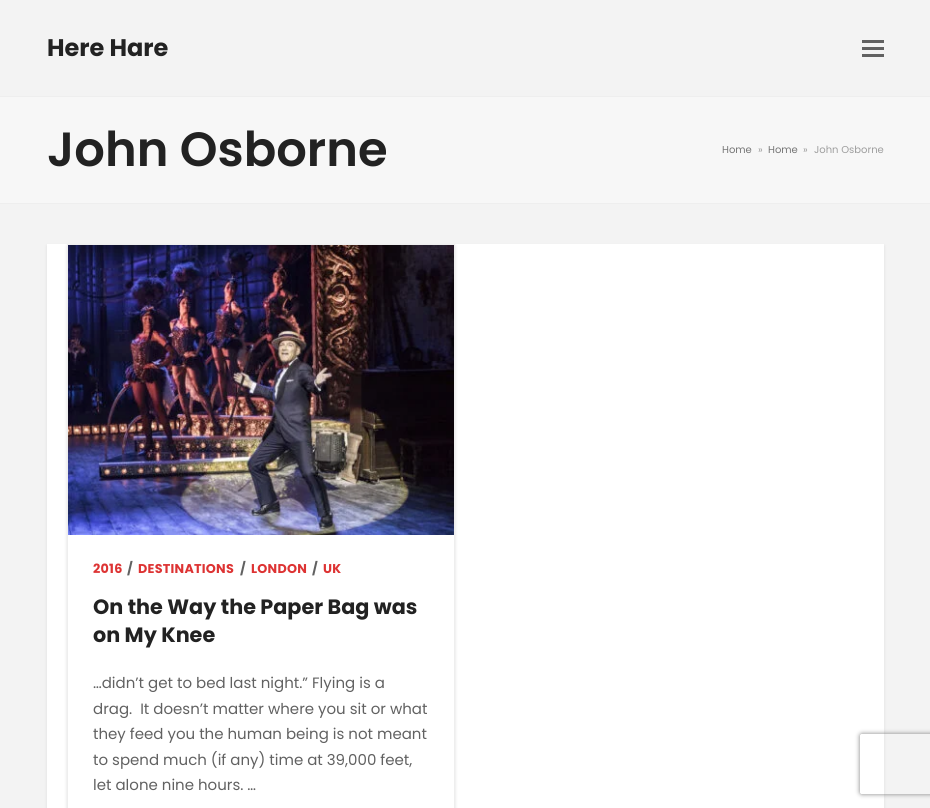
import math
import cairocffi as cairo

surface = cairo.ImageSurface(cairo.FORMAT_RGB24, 930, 808)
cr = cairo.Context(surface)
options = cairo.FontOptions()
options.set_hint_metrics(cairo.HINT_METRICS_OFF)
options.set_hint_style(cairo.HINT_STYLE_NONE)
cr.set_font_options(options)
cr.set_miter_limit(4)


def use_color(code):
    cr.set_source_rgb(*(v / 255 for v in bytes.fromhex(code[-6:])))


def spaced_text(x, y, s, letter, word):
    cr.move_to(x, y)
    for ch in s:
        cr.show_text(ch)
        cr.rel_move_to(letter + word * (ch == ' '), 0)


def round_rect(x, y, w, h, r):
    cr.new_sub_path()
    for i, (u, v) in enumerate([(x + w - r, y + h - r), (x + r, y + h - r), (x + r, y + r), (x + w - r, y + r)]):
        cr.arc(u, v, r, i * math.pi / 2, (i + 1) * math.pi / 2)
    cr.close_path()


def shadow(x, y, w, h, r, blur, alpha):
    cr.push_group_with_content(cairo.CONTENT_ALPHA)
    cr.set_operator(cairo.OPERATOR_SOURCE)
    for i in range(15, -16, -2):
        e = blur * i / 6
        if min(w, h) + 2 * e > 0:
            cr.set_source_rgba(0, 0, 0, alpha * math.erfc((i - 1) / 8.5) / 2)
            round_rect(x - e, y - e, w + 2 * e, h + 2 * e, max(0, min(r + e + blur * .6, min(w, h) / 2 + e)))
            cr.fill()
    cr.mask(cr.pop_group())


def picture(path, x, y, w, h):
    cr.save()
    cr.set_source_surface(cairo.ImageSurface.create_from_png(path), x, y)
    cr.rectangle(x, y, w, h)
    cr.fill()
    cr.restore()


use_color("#f3f3f3")
cr.paint()
cr.select_font_face("Poppins", cairo.FONT_SLANT_NORMAL, cairo.FONT_WEIGHT_BOLD)
cr.set_font_size(24)
use_color("#222222")
cr.move_to(47, 56)
cr.show_text("Here Hare")
use_color("#616161")
cr.rectangle(862, 47, 22, 3)
cr.fill()
cr.rectangle(862, 40, 22, 3)
cr.fill()
cr.rectangle(862, 54, 22, 3)
cr.fill()
use_color("#f7f7f7")
cr.rectangle(0, 97, 930, 106)
cr.fill()
use_color("#eeeeee")
cr.rectangle(0, 96, 930, 1)
cr.fill()
cr.rectangle(0, 203, 930, 1)
cr.fill()
cr.select_font_face("Poppins SemiBold")
cr.set_font_size(48)
use_color("#222222")
cr.move_to(47, 166)
cr.show_text("John Osborne")
cr.select_font_face("Poppins")
cr.set_font_size(10)
use_color("#757575")
cr.move_to(722, 153)
cr.show_text("Home")
use_color("#9e9e9e")
cr.move_to(758, 153)
cr.show_text("»")
use_color("#757575")
cr.move_to(768, 153)
cr.show_text("Home")
use_color("#9e9e9e")
cr.move_to(803, 153)
cr.show_text("»")
cr.move_to(814, 153)
cr.show_text("John Osborne")
use_color("#dddddd")
shadow(47, 246, 837, 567, 0, 1.5, 1)
use_color("#ffffff")
cr.rectangle(47, 244, 837, 564)
cr.fill()
cr.save()
cr.set_fill_rule(cairo.FILL_RULE_EVEN_ODD)
cr.new_path()
cr.move_to(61, 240)
cr.line_to(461, 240)
cr.line_to(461, 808)
cr.line_to(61, 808)
cr.close_path()
cr.move_to(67, 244)
cr.line_to(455, 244)
cr.line_to(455, 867)
cr.line_to(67, 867)
cr.close_path()
cr.clip()
use_color("#dddddd")
shadow(67, 246, 388, 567, 0, 1.5, 1)
cr.restore()
cr.rectangle(67.5, 244.5, 387, 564)
use_color("#eeeeee")
cr.set_line_width(1)
cr.stroke()
picture("img1.png", 68, 245, 386, 290)
cr.select_font_face("Poppins", cairo.FONT_SLANT_NORMAL, cairo.FONT_WEIGHT_BOLD)
cr.set_font_size(12.75)
use_color("#dd3333")
spaced_text(93, 573, "2016", 0.25, 0)
use_color("#616161")
spaced_text(127, 573, "∕", 0.25, 0)
use_color("#dd3333")
spaced_text(138, 573, "DESTINATIONS", 0.25, 0)
use_color("#616161")
spaced_text(240, 573, "∕", 0.25, 0)
use_color("#dd3333")
spaced_text(251, 573, "LONDON", 0.25, 0)
use_color("#616161")
spaced_text(312, 573, "∕", 0.25, 0)
use_color("#dd3333")
spaced_text(323, 573, "UK", 0.25, 0)
cr.set_font_size(20.75)
use_color("#222222")
cr.move_to(93, 614)
cr.show_text("On the Way the Paper Bag was")
cr.move_to(93, 642)
cr.show_text("on My Knee")
cr.select_font_face("Poppins")
cr.set_font_size(15)
use_color("#616161")
cr.move_to(93, 688)
cr.show_text("…didn’t get to bed last night.” Flying is a")
cr.move_to(93, 714)
cr.show_text("drag.  It doesn’t matter where you sit or what")
cr.move_to(93, 739)
cr.show_text("they feed you the human being is not meant")
cr.move_to(93, 765)
cr.show_text("to spend much (if any) time at 39,000 feet,")
cr.move_to(93, 790)
cr.show_text("let alone nine hours. …")
cr.save()
cr.set_fill_rule(cairo.FILL_RULE_EVEN_ODD)
cr.new_path()
cr.move_to(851, 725)
cr.line_to(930, 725)
cr.line_to(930, 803)
cr.line_to(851, 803)
cr.close_path()
cr.move_to(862, 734)
cr.line_to(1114, 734)
cr.curve_to(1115, 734, 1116, 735, 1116, 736)
cr.line_to(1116, 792)
cr.curve_to(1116, 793, 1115, 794, 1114, 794)
cr.line_to(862, 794)
cr.curve_to(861, 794, 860, 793, 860, 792)
cr.line_to(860, 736)
cr.curve_to(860, 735, 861, 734, 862, 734)
cr.close_path()
cr.clip()
use_color("#808080")
shadow(860, 734, 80, 60, 2, 2.5, 1)
cr.restore()
surface.write_to_png("result.png")
